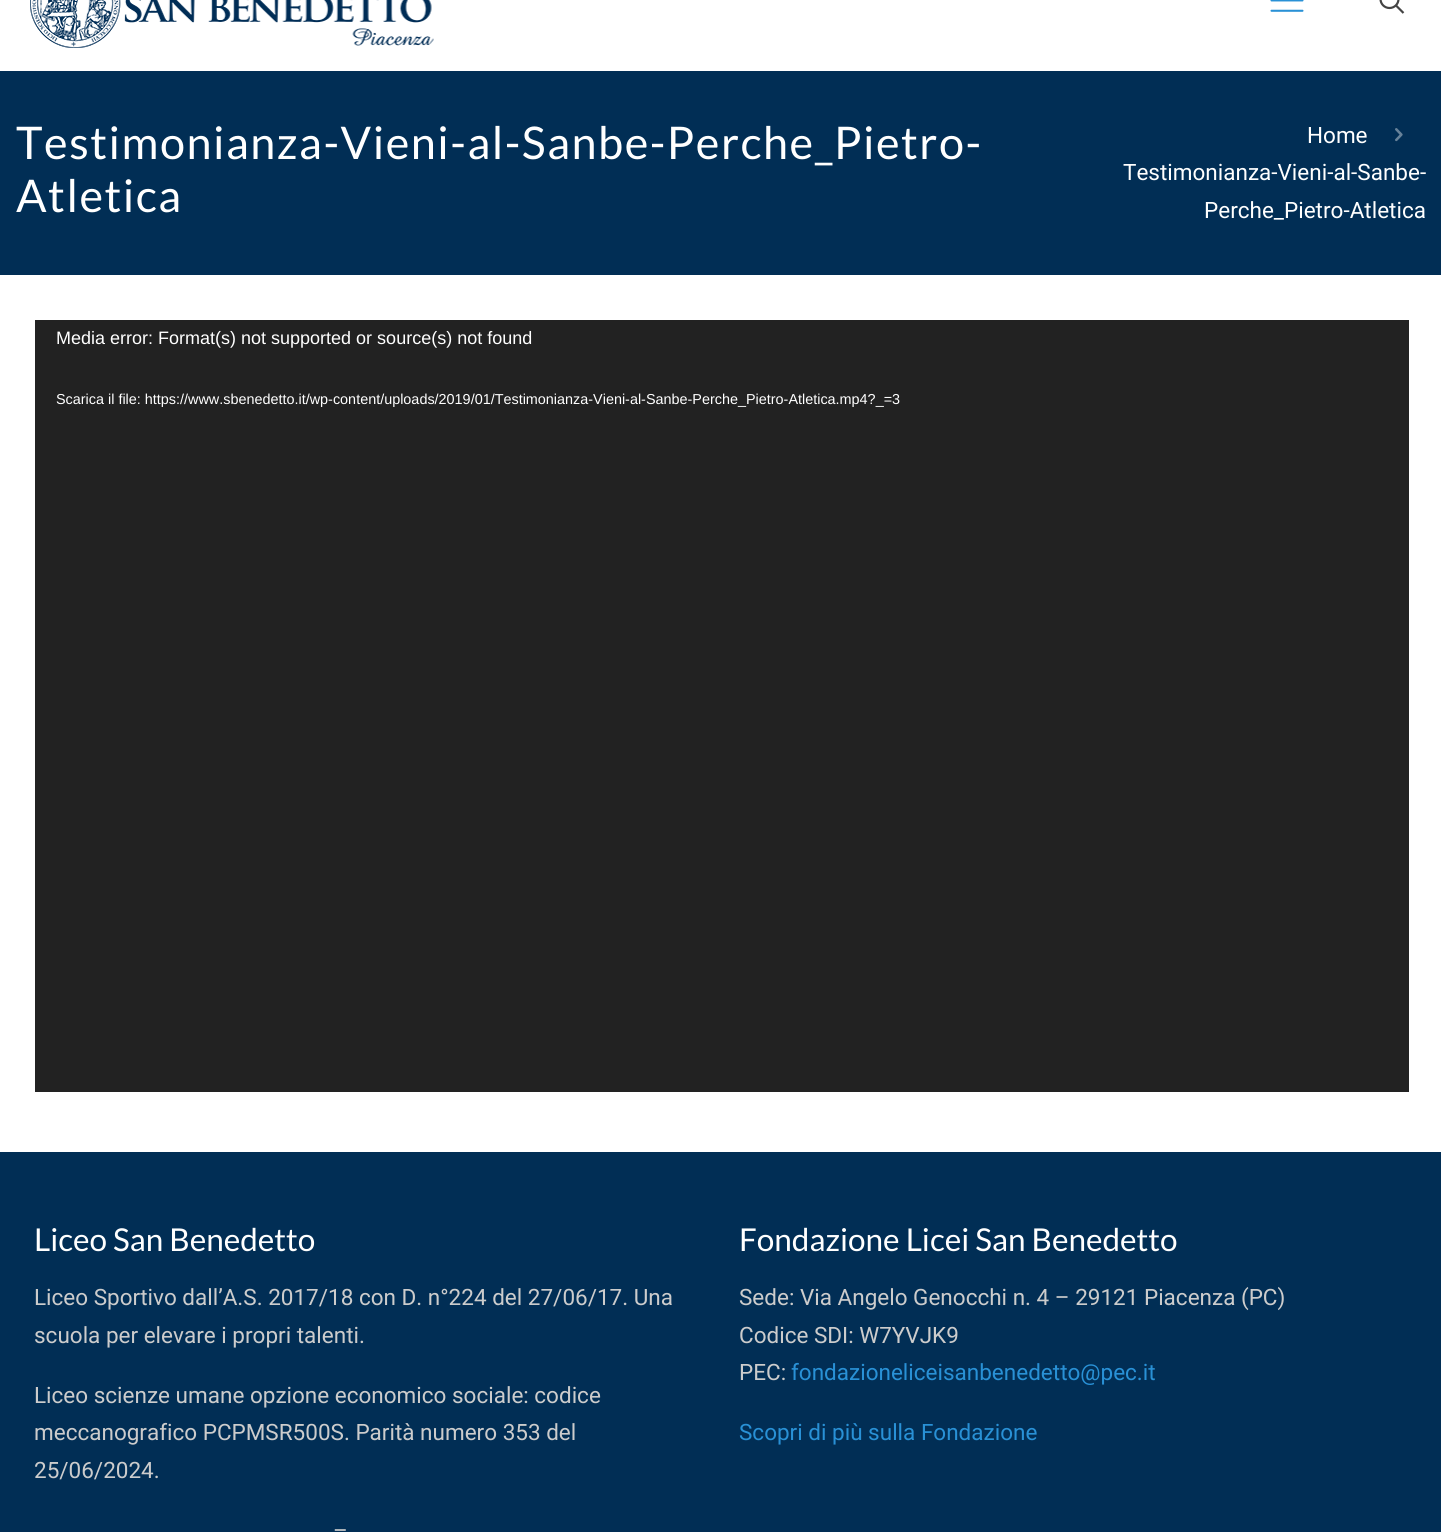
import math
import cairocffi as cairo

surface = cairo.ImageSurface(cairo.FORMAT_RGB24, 1441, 1532)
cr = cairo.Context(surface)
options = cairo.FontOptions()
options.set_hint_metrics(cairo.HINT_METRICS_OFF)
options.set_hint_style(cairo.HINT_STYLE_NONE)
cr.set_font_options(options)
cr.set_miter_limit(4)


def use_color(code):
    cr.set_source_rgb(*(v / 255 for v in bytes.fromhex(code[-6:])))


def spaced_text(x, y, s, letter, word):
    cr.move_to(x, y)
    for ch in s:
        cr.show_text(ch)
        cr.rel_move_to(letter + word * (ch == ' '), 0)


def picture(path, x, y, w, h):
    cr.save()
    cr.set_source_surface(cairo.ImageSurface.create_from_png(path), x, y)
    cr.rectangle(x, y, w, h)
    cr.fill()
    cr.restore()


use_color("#ffffff")
cr.paint()
use_color("#012e55")
cr.rectangle(0, 71, 1441, 204)
cr.fill()
picture("img1.png", 30, 0, 404, 48)
picture("img2.png", 1270, 0, 34, 12)
cr.arc(1389.5, -1, 9, 0, 2 * math.pi)
use_color("#444444")
cr.set_line_width(2.2)
cr.stroke()
cr.new_path()
cr.move_to(1396, 5.5)
cr.line_to(1403.5, 13)
cr.stroke()
cr.select_font_face("Lato")
cr.set_font_size(45)
use_color("#ffffff")
spaced_text(16, 159, "Testimonianza-Vieni-al-Sanbe-Perche_Pietro-", 1.5, 0)
spaced_text(16, 212, "Atletica", 1.5, 0)
cr.select_font_face("Roboto")
cr.set_font_size(22.5)
cr.move_to(1307, 143)
cr.show_text("Home")
picture("img3.png", 1395, 128, 8, 14)
cr.move_to(1123, 180)
cr.show_text("Testimonianza-Vieni-al-Sanbe-")
cr.move_to(1204, 218)
cr.show_text("Perche_Pietro-Atletica")
use_color("#222222")
cr.rectangle(35, 320, 1374, 772)
cr.fill()
cr.select_font_face("Liberation Sans")
cr.set_font_size(18)
use_color("#ffffff")
cr.move_to(56, 344)
cr.show_text("Media error: Format(s) not supported or source(s) not found")
cr.set_font_size(14.4)
cr.move_to(56, 404)
cr.show_text("Scarica il file: https://www.sbenedetto.it/wp-content/uploads/2019/01/Testimonianza-Vieni-al-Sanbe-Perche_Pietro-Atletica.mp4?_=3")
use_color("#012e55")
cr.rectangle(0, 1152, 1441, 380)
cr.fill()
cr.select_font_face("Lato")
cr.set_font_size(31.5)
use_color("#ffffff")
cr.move_to(34, 1251)
cr.show_text("Liceo San Benedetto")
cr.select_font_face("Roboto")
cr.set_font_size(22.5)
use_color("#cccccc")
cr.move_to(34, 1305)
cr.show_text("Liceo Sportivo dall’A.S. 2017/18 con D. n°224 del 27/06/17. Una")
cr.move_to(34, 1343)
cr.show_text("scuola per elevare i propri talenti.")
cr.move_to(34, 1403)
cr.show_text("Liceo scienze umane opzione economico sociale: codice")
cr.move_to(34, 1440)
cr.show_text("meccanografico PCPMSR500S. Parità numero 353 del")
cr.move_to(34, 1478)
cr.show_text("25/06/2024.")
cr.move_to(333, 1538)
cr.show_text("–")
cr.select_font_face("Lato")
cr.set_font_size(31.5)
use_color("#ffffff")
cr.move_to(739, 1251)
cr.show_text("Fondazione Licei San Benedetto")
cr.select_font_face("Roboto")
cr.set_font_size(22.5)
use_color("#cccccc")
cr.move_to(739, 1305)
cr.show_text("Sede: Via Angelo Genocchi n. 4 – 29121 Piacenza (PC)")
cr.move_to(739, 1343)
cr.show_text("Codice SDI: W7YVJK9")
cr.move_to(739, 1380)
cr.show_text("PEC:")
use_color("#2991d6")
cr.move_to(791, 1380)
cr.show_text("fondazioneliceisanbenedetto@pec.it")
cr.move_to(739, 1440)
cr.show_text("Scopri di più sulla Fondazione")
surface.write_to_png("result.png")
